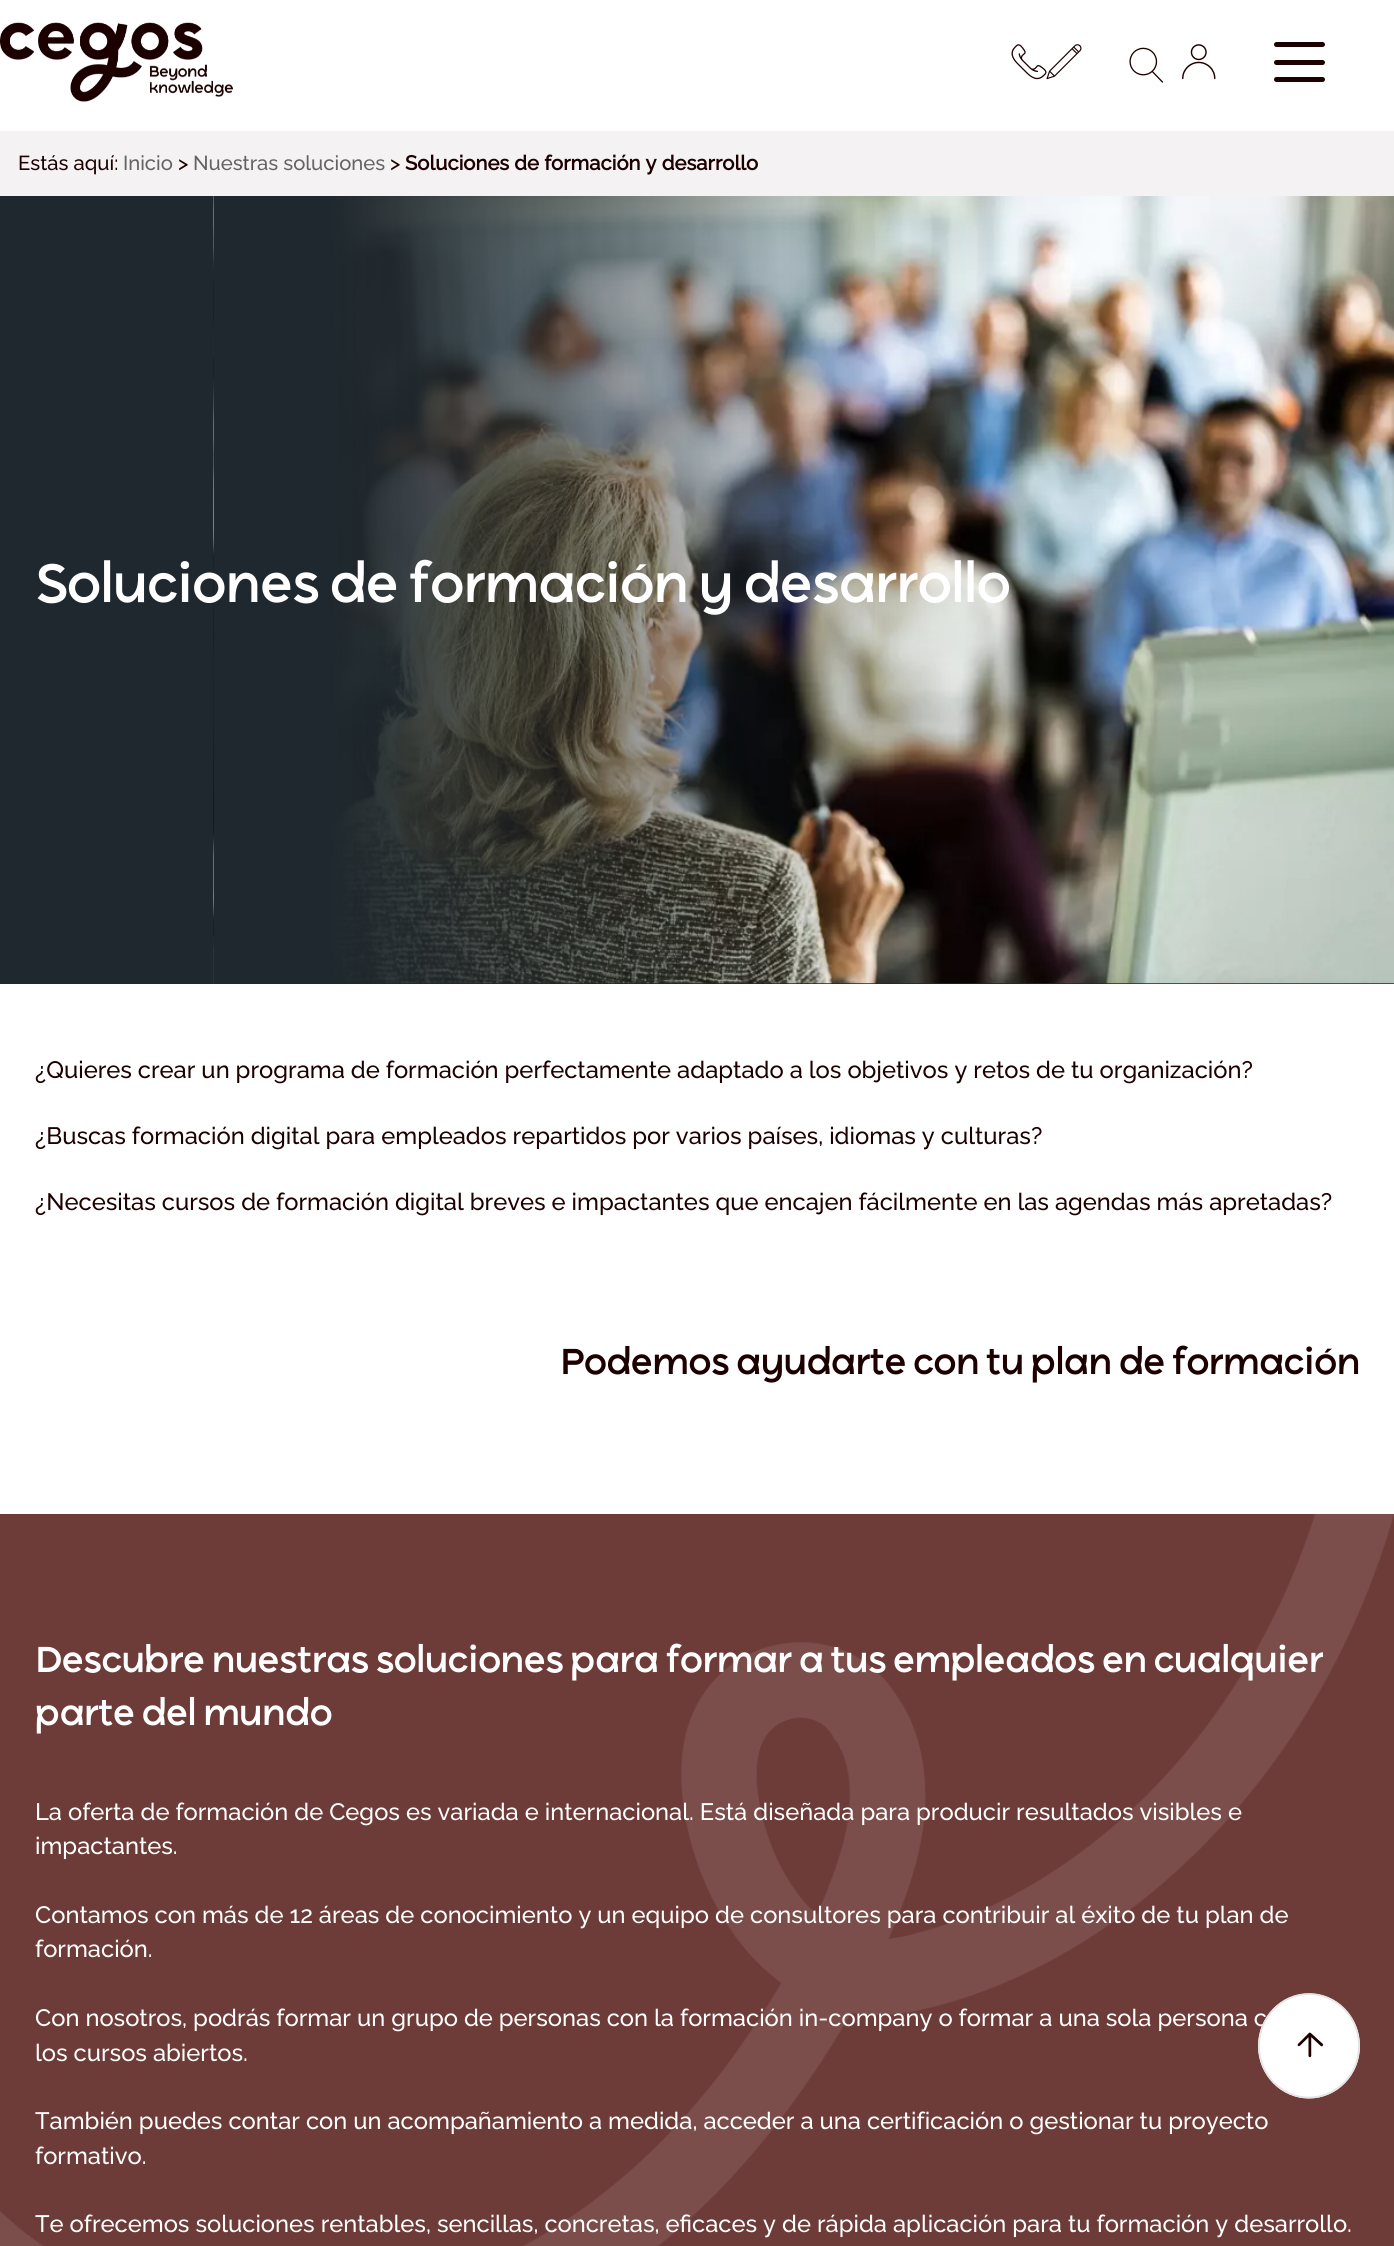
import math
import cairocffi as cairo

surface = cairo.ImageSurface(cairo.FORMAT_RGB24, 1394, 2246)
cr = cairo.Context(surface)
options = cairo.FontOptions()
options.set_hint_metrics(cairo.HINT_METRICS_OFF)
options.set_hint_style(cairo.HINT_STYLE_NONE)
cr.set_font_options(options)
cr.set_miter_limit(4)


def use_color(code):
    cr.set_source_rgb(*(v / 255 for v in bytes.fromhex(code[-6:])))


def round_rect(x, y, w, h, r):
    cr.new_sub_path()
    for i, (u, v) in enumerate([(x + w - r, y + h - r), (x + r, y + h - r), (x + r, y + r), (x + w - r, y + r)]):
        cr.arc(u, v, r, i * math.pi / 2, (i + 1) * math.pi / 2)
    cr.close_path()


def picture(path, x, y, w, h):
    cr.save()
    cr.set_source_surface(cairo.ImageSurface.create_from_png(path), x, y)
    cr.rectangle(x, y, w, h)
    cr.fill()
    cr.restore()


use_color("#ffffff")
cr.paint()
picture("img1.png", 0, 22, 233, 80)
picture("img2.png", 1011, 44, 36, 36)
picture("img3.png", 1046, 44, 36, 36)
picture("img4.png", 1129, 47, 34, 36)
picture("img5.png", 1182, 44, 34, 36)
use_color("#1d0000")
round_rect(1274, 42, 51, 5, 2.5)
cr.fill()
round_rect(1274, 60, 51, 5, 2.5)
cr.fill()
round_rect(1274, 77, 51, 5, 2.5)
cr.fill()
use_color("#f4f2f2")
cr.rectangle(0, 131, 1394, 65)
cr.fill()
cr.select_font_face("Raleway Medium")
cr.set_font_size(20.25)
use_color("#1d0000")
cr.move_to(18, 170)
cr.show_text("Estás aquí:")
use_color("#646464")
cr.move_to(123, 170)
cr.show_text("Inicio")
use_color("#1d0000")
cr.move_to(178, 170)
cr.show_text(">")
use_color("#646464")
cr.move_to(193, 170)
cr.show_text("Nuestras soluciones")
use_color("#1d0000")
cr.move_to(390, 170)
cr.show_text(">")
cr.select_font_face("Raleway", cairo.FONT_SLANT_NORMAL, cairo.FONT_WEIGHT_BOLD)
cr.move_to(405, 170)
cr.show_text("Soluciones de formación y desarrollo")
use_color("#1f282e")
cr.rectangle(0, 196, 1394, 788)
cr.fill()
picture("img6.png", 213, 196, 1181, 788)
gradient = cairo.LinearGradient(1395, 590, 213, 590)
gradient.add_color_stop_rgba(0.43, 0.122, 0.157, 0.18, 0)
gradient.add_color_stop_rgba(0.9, 0.122, 0.157, 0.18, 1)
cr.set_source(gradient)
cr.rectangle(214, 196, 661, 788)
cr.fill()
cr.select_font_face("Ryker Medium")
cr.set_font_size(54.3)
use_color("#ffffff")
cr.move_to(35, 602)
cr.show_text("Soluciones de formación y desarrollo")
cr.select_font_face("Raleway Medium")
cr.set_font_size(23.72)
use_color("#1d0000")
cr.move_to(35, 1078)
cr.show_text("¿Quieres crear un programa de formación perfectamente adaptado a los objetivos y retos de tu organización?")
cr.move_to(35, 1144)
cr.show_text("¿Buscas formación digital para empleados repartidos por varios países, idiomas y culturas?")
cr.move_to(35, 1210)
cr.show_text("¿Necesitas cursos de formación digital breves e impactantes que encajen fácilmente en las agendas más apretadas?")
cr.select_font_face("Ryker Medium")
cr.set_font_size(36.5)
cr.move_to(560, 1374)
cr.show_text("Podemos ayudarte con tu plan de formación")
use_color("#6d3b38")
cr.rectangle(0, 1514, 1394, 732)
cr.fill()
picture("img7.png", 0, 1514, 1394, 732)
use_color("#ffffff")
cr.move_to(35, 1672)
cr.show_text("Descubre nuestras soluciones para formar a tus empleados en cualquier")
cr.move_to(35, 1725)
cr.show_text("parte del mundo")
cr.select_font_face("Raleway Medium")
cr.set_font_size(23.72)
cr.move_to(35, 1820)
cr.show_text("La oferta de formación de Cegos es variada e internacional. Está diseñada para producir resultados visibles e")
cr.move_to(35, 1854)
cr.show_text("impactantes.")
cr.move_to(35, 1923)
cr.show_text("Contamos con más de 12 áreas de conocimiento y un equipo de consultores para contribuir al éxito de tu plan de")
cr.move_to(35, 1957)
cr.show_text("formación.")
cr.move_to(35, 2026)
cr.show_text("Con nosotros, podrás formar un grupo de personas con la formación in-company o formar a una sola persona c")
cr.move_to(35, 2061)
cr.show_text("los cursos abiertos.")
cr.move_to(35, 2129)
cr.show_text("También puedes contar con un acompañamiento a medida, acceder a una certificación o gestionar tu proyecto")
cr.move_to(35, 2164)
cr.show_text("formativo.")
cr.move_to(35, 2232)
cr.show_text("Te ofrecemos soluciones rentables, sencillas, concretas, eﬁcaces y de rápida aplicación para tu formación y desarrollo.")
cr.new_path()
cr.move_to(1309, 1993.5)
cr.curve_to(1337, 1993.5, 1360, 2017, 1360, 2046)
cr.curve_to(1360, 2075, 1337, 2098.5, 1309, 2098.5)
cr.curve_to(1281, 2098.5, 1258, 2075, 1258, 2046)
cr.curve_to(1258, 2017, 1281, 1993.5, 1309, 1993.5)
cr.close_path()
cr.fill()
cr.new_path()
cr.move_to(1309, 1994)
cr.curve_to(1336.5, 1994, 1359, 2017, 1359, 2046)
cr.curve_to(1359, 2074.5, 1336.5, 2097.5, 1309, 2097.5)
cr.curve_to(1281.5, 2097.5, 1259, 2074.5, 1259, 2046)
cr.curve_to(1259, 2017, 1281.5, 1994, 1309, 1994)
cr.close_path()
use_color("#e4e4e4")
cr.set_line_width(1.8)
cr.stroke()
picture("img8.png", 1297, 2032, 27, 26)
surface.write_to_png("result.png")
